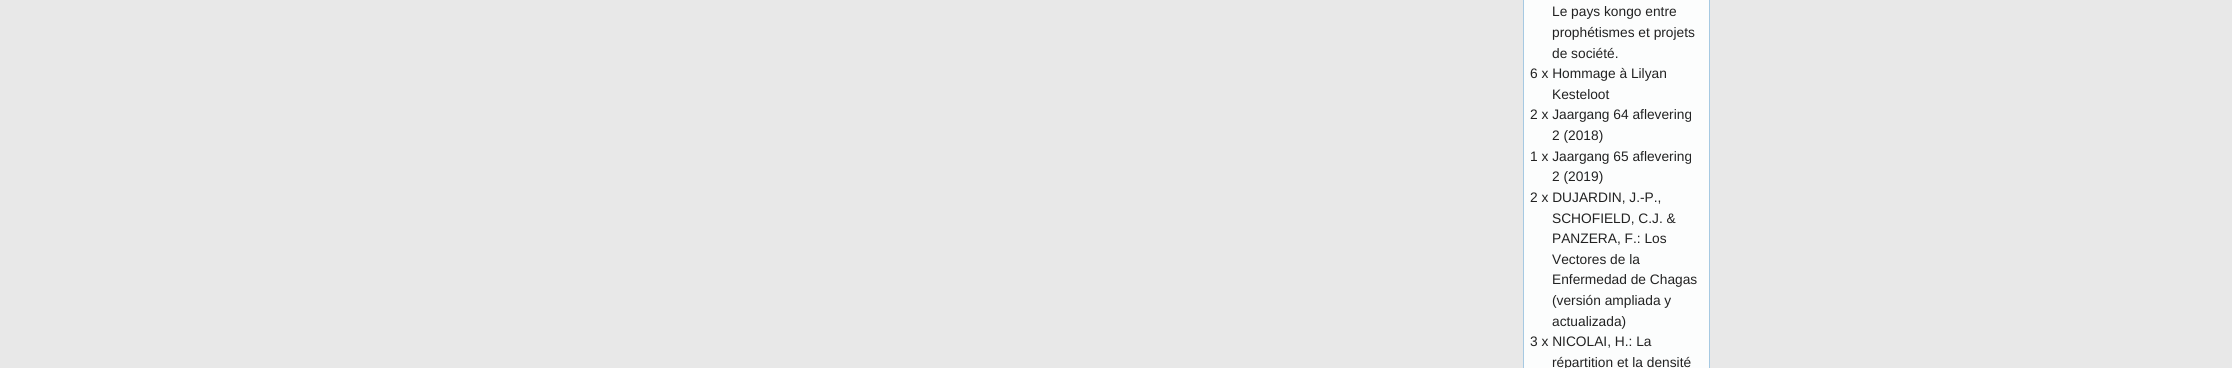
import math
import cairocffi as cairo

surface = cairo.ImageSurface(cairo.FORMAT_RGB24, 2232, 368)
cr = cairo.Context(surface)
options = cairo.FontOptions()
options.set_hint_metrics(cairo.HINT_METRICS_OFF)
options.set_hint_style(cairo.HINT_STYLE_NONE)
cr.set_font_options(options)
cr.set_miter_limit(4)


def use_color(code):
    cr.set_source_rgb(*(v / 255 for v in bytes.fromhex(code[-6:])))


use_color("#e8e8e8")
cr.paint()
use_color("#fcfdfd")
cr.rectangle(1523.5, -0.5, 186, 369)
cr.fill_preserve()
use_color("#a6c9e2")
cr.set_line_width(1)
cr.stroke()
cr.select_font_face("Liberation Sans")
cr.set_font_size(13.75)
use_color("#222222")
cr.move_to(1552, 16)
cr.show_text("Le pays kongo entre")
cr.move_to(1552, 37)
cr.show_text("prophétismes et projets")
cr.move_to(1552, 58)
cr.show_text("de société.")
cr.move_to(1530, 78)
cr.show_text("6 x Hommage à Lilyan")
cr.move_to(1552, 99)
cr.show_text("Kesteloot")
cr.move_to(1530, 119)
cr.show_text("2 x Jaargang 64 aflevering")
cr.move_to(1552, 140)
cr.show_text("2 (2018)")
cr.move_to(1530, 161)
cr.show_text("1 x Jaargang 65 aflevering")
cr.move_to(1552, 181)
cr.show_text("2 (2019)")
cr.move_to(1530, 202)
cr.show_text("2 x DUJARDIN, J.-P.,")
cr.move_to(1552, 223)
cr.show_text("SCHOFIELD, C.J. &")
cr.move_to(1552, 243)
cr.show_text("PANZERA, F.: Los")
cr.move_to(1552, 264)
cr.show_text("Vectores de la")
cr.move_to(1552, 284)
cr.show_text("Enfermedad de Chagas")
cr.move_to(1552, 305)
cr.show_text("(versión ampliada y")
cr.move_to(1552, 326)
cr.show_text("actualizada)")
cr.move_to(1530, 346)
cr.show_text("3 x NICOLAI, H.: La")
cr.move_to(1552, 367)
cr.show_text("répartition et la densité")
surface.write_to_png("result.png")
